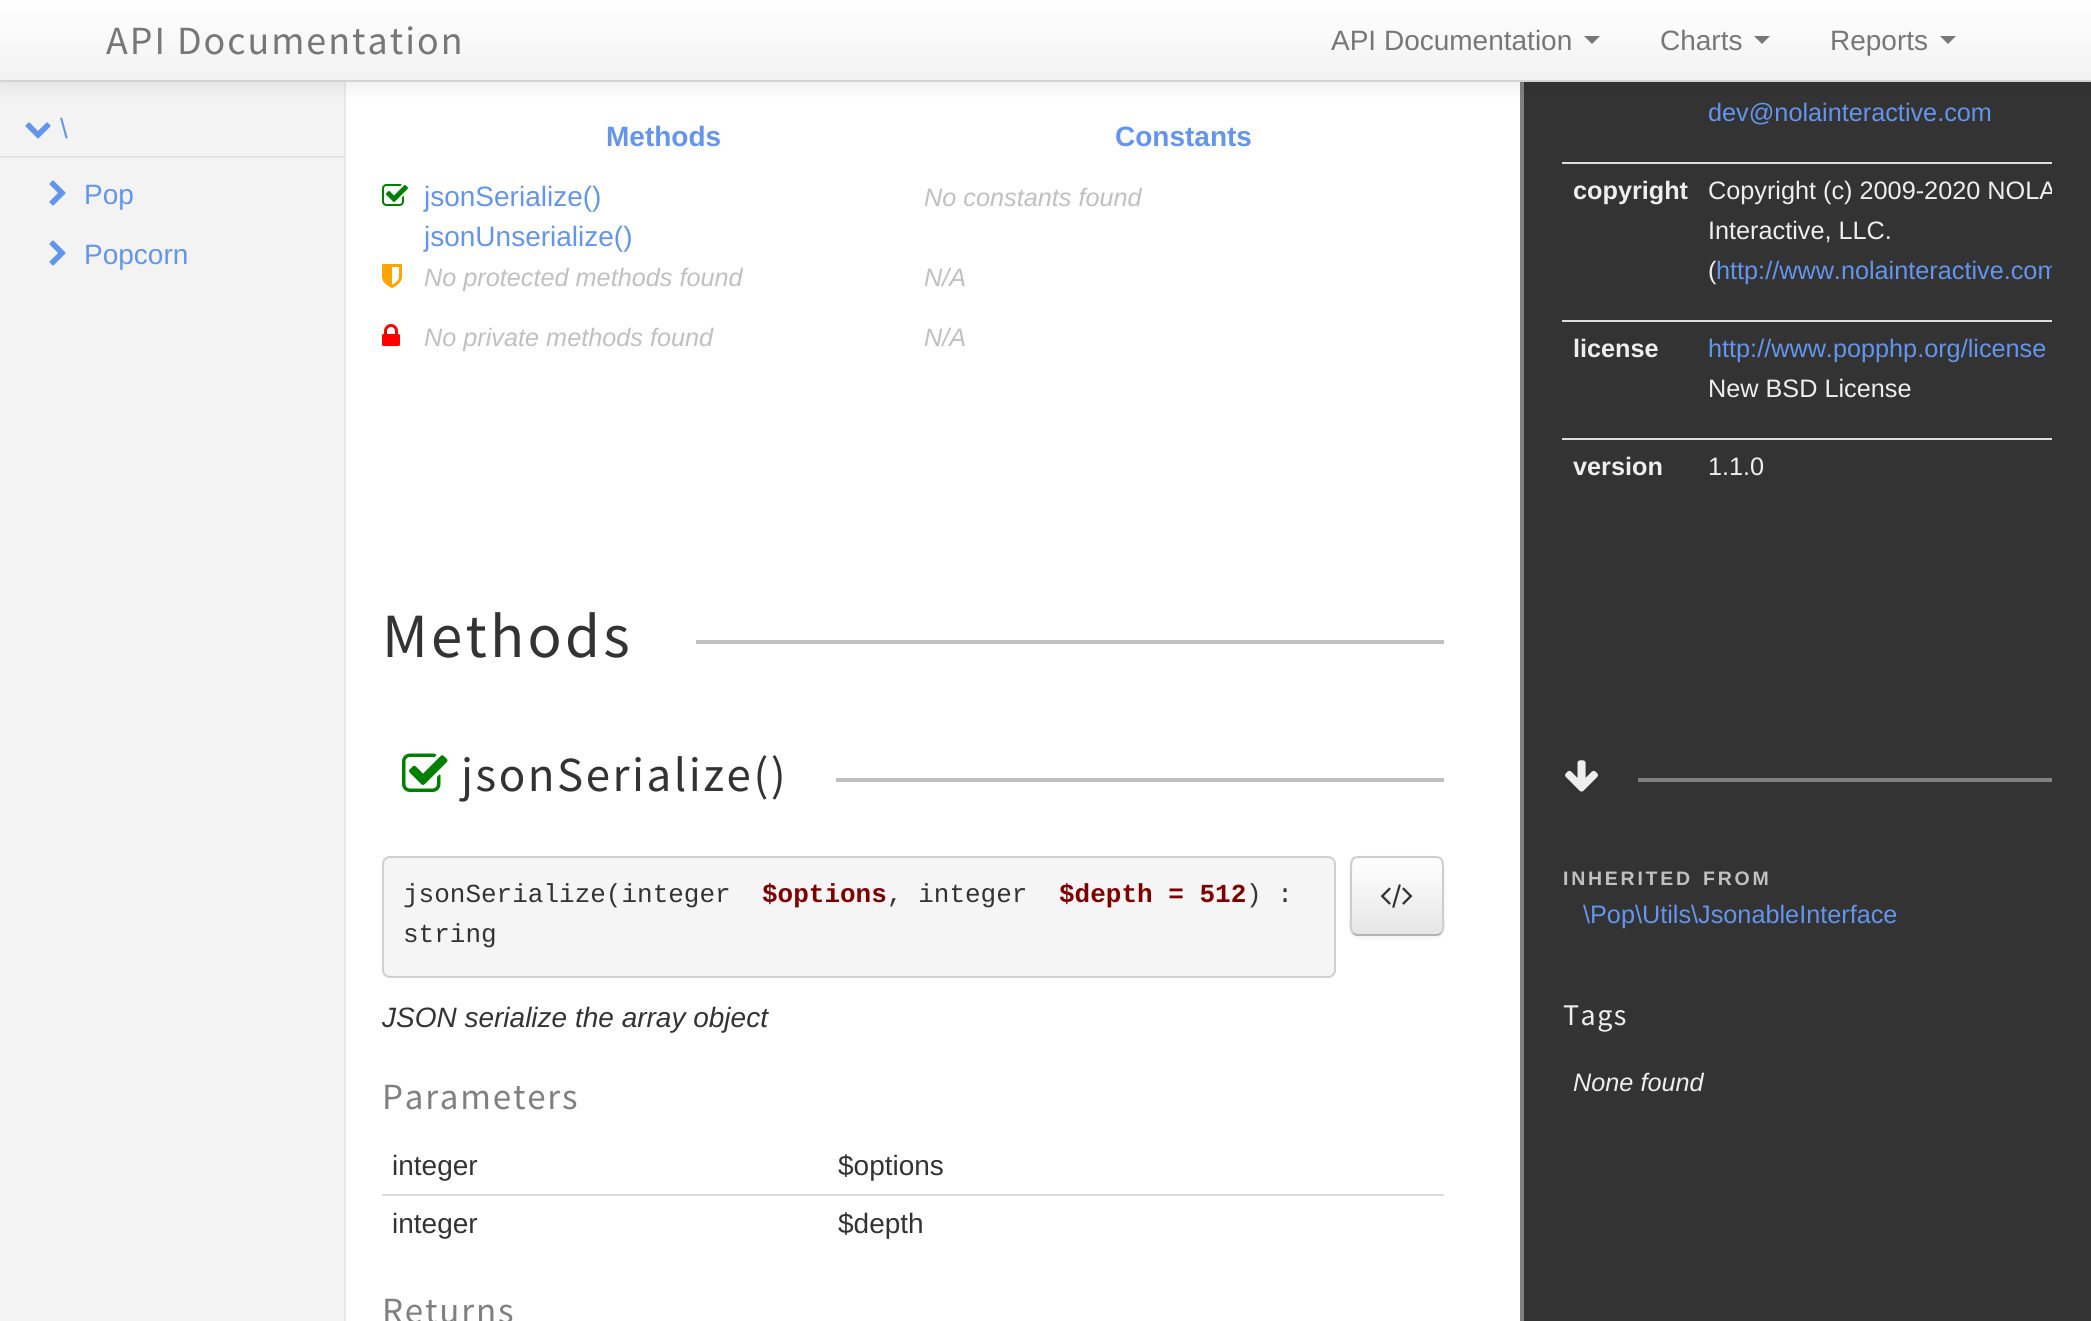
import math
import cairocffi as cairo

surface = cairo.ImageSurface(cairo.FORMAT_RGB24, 2091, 1321)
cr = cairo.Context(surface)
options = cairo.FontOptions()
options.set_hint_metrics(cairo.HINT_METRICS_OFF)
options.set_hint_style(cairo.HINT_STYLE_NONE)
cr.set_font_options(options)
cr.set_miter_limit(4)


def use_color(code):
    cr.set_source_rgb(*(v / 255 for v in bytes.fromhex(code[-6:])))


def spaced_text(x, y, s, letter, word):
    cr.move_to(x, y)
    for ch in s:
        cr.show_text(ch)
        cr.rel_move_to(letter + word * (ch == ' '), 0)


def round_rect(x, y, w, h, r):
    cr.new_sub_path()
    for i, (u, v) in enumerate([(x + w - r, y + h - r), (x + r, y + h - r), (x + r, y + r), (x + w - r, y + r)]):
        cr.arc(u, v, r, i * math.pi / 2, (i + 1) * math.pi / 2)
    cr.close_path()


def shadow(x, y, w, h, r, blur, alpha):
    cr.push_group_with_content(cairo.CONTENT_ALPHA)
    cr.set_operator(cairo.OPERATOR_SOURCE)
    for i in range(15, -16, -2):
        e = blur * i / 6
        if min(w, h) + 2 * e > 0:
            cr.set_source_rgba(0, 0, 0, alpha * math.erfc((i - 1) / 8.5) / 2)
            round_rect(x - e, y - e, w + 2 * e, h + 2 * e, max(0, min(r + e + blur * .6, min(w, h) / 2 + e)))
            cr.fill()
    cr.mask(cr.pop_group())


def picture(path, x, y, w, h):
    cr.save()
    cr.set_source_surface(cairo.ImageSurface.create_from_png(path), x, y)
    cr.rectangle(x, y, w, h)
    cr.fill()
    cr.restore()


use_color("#333333")
cr.paint()
use_color("#f3f3f3")
cr.rectangle(0, 82, 344, 1239)
cr.fill()
use_color("#e9e9e9")
cr.rectangle(344, 80, 2, 1241)
cr.fill()
use_color("#ffffff")
cr.rectangle(346, 82, 1174, 1239)
cr.fill()
use_color("#808080")
cr.rectangle(1520, 82, 4, 1239)
cr.fill()
use_color("#000000")
shadow(0, 2, 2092, 82, 0, 10, 0.1)
gradient = cairo.LinearGradient(1046, 0, 1046, 80)
gradient.add_color_stop_rgba(0, 1, 1, 1, 1)
gradient.add_color_stop_rgba(1, 0.949, 0.949, 0.949, 1)
cr.set_source(gradient)
cr.rectangle(0, 0, 2091, 80)
cr.fill()
use_color("#d4d4d4")
cr.rectangle(0, 80, 2091, 2)
cr.fill()
cr.select_font_face("Source Sans Pro")
cr.set_font_size(40)
use_color("#777777")
spaced_text(106, 54, "API Documentation", 2, 0)
cr.select_font_face("Liberation Sans")
cr.set_font_size(28)
cr.move_to(1331, 50)
cr.show_text("API Documentation")
cr.new_path()
cr.move_to(1584, 36)
cr.line_to(1600, 36)
cr.line_to(1592, 44)
cr.close_path()
cr.fill()
cr.move_to(1660, 50)
cr.show_text("Charts")
cr.new_path()
cr.move_to(1754, 36)
cr.line_to(1770, 36)
cr.line_to(1762, 44)
cr.close_path()
cr.fill()
cr.move_to(1830, 50)
cr.show_text("Reports")
cr.new_path()
cr.move_to(1940, 36)
cr.line_to(1956, 36)
cr.line_to(1948, 44)
cr.close_path()
cr.fill()
picture("img1.png", 25, 122, 26, 17)
use_color("#6495ed")
cr.move_to(60, 138)
cr.show_text("\\")
use_color("#e5e5e5")
cr.rectangle(0, 156, 344, 2)
cr.fill()
picture("img2.png", 49, 180, 17, 26)
use_color("#6495ed")
cr.move_to(84, 204)
cr.show_text("Pop")
picture("img2.png", 49, 240, 17, 26)
cr.move_to(84, 264)
cr.show_text("Popcorn")
cr.select_font_face("Liberation Sans", cairo.FONT_SLANT_NORMAL, cairo.FONT_WEIGHT_BOLD)
cr.move_to(606, 146)
cr.show_text("Methods")
cr.move_to(1115, 146)
cr.show_text("Constants")
picture("img3.png", 382, 184, 26, 22)
cr.select_font_face("Liberation Sans")
cr.move_to(424, 206)
cr.show_text("jsonSerialize()")
cr.move_to(424, 246)
cr.show_text("jsonUnserialize()")
cr.select_font_face("Liberation Sans", cairo.FONT_SLANT_ITALIC)
cr.set_font_size(25.25)
use_color("#c0c0c0")
cr.move_to(924, 206)
cr.show_text("No constants found")
picture("img4.png", 382, 264, 20, 24)
cr.move_to(424, 286)
cr.show_text("No protected methods found")
cr.move_to(924, 286)
cr.show_text("N/A")
picture("img5.png", 382, 324, 18, 22)
cr.move_to(424, 346)
cr.show_text("No private methods found")
cr.move_to(924, 346)
cr.show_text("N/A")
cr.select_font_face("Liberation Sans")
use_color("#6495ed")
cr.move_to(1708, 121)
cr.show_text("dev@nolainteractive.com")
cr.select_font_face("Liberation Sans", cairo.FONT_SLANT_NORMAL, cairo.FONT_WEIGHT_BOLD)
use_color("#eeeeee")
cr.move_to(1573, 199)
cr.show_text("copyright")
use_color("#dddddd")
cr.rectangle(1562, 162, 490, 2)
cr.fill()
cr.save()
cr.rectangle(1524, 0, 528, 536)
cr.clip()
cr.select_font_face("Liberation Sans")
use_color("#eeeeee")
cr.move_to(1708, 199)
cr.show_text("Copyright (c) 2009-2020 NOLA")
cr.restore()
cr.select_font_face("Liberation Sans")
use_color("#eeeeee")
cr.move_to(1708, 239)
cr.show_text("Interactive, LLC.")
cr.move_to(1708, 279)
cr.show_text("(")
cr.save()
cr.rectangle(1524, 0, 528, 536)
cr.clip()
use_color("#6495ed")
cr.move_to(1716, 279)
cr.show_text("http://www.nolainteractive.com")
cr.restore()
cr.select_font_face("Liberation Sans", cairo.FONT_SLANT_NORMAL, cairo.FONT_WEIGHT_BOLD)
cr.move_to(1573, 357)
cr.show_text("license")
use_color("#dddddd")
cr.rectangle(1562, 320, 490, 2)
cr.fill()
cr.select_font_face("Liberation Sans")
use_color("#6495ed")
cr.move_to(1708, 357)
cr.show_text("http://www.popphp.org/license")
use_color("#eeeeee")
cr.move_to(1708, 397)
cr.show_text("New BSD License")
cr.select_font_face("Liberation Sans", cairo.FONT_SLANT_NORMAL, cairo.FONT_WEIGHT_BOLD)
cr.move_to(1573, 475)
cr.show_text("version")
use_color("#dddddd")
cr.rectangle(1562, 438, 490, 2)
cr.fill()
cr.select_font_face("Liberation Sans")
use_color("#eeeeee")
cr.move_to(1708, 475)
cr.show_text("1.1.0")
cr.select_font_face("Source Sans Pro")
cr.set_font_size(63)
use_color("#333333")
spaced_text(382, 657, "Methods", 3.25, 0)
use_color("#c0c0c0")
cr.rectangle(696, 640, 748, 4)
cr.fill()
picture("img6.png", 402, 753, 46, 39)
cr.set_font_size(49)
use_color("#333333")
spaced_text(461, 791, "jsonSerialize()", 2.5, 0)
use_color("#c0c0c0")
cr.rectangle(836, 778, 608, 4)
cr.fill()
use_color("#f5f5f5")
round_rect(382, 856, 954, 122, 8)
cr.fill()
round_rect(383, 857, 952, 120, 7)
cr.set_source_rgba(0, 0, 0, 0.15)
cr.stroke()
cr.select_font_face("Liberation Mono")
cr.set_font_size(26)
use_color("#333333")
cr.move_to(403, 902)
cr.show_text("jsonSerialize(integer")
cr.select_font_face("Liberation Mono", cairo.FONT_SLANT_NORMAL, cairo.FONT_WEIGHT_BOLD)
use_color("#800000")
cr.move_to(762, 902)
cr.show_text("$options")
cr.select_font_face("Liberation Mono")
use_color("#333333")
cr.move_to(887, 902)
cr.show_text(", integer")
cr.select_font_face("Liberation Mono", cairo.FONT_SLANT_NORMAL, cairo.FONT_WEIGHT_BOLD)
use_color("#800000")
cr.move_to(1059, 902)
cr.show_text("$depth = 512")
cr.select_font_face("Liberation Mono")
use_color("#333333")
cr.move_to(1246, 902)
cr.show_text(") :")
cr.move_to(403, 942)
cr.show_text("string")
use_color("#000000")
shadow(1350, 858, 94, 80, 8, 2, 0.05)
cr.save()
round_rect(1350, 856, 94, 80, 8)
cr.clip()
gradient = cairo.LinearGradient(1397, 858, 1397, 934)
gradient.add_color_stop_rgba(0, 1, 1, 1, 1)
gradient.add_color_stop_rgba(1, 0.902, 0.902, 0.902, 1)
cr.set_source(gradient)
cr.rectangle(1350, 858, 94, 76)
cr.fill()
cr.restore()
cr.new_path()
cr.move_to(1441, 933)
cr.curve_to(1439.5, 934.5, 1438, 935, 1436, 935)
cr.line_to(1358, 935)
cr.curve_to(1356, 935, 1354.5, 934.5, 1353, 933)
use_color("#b3b3b3")
cr.stroke()
cr.new_path()
cr.move_to(1353, 933)
cr.curve_to(1349.5, 929, 1351, 921, 1351, 917.5)
cr.line_to(1351, 874.5)
cr.curve_to(1351, 855, 1351, 857, 1371, 857)
cr.line_to(1423, 857)
cr.curve_to(1443, 857, 1443, 855, 1443, 874.5)
cr.line_to(1443, 917.5)
cr.curve_to(1443, 921, 1444.5, 929, 1441, 933)
use_color("#cccccc")
cr.stroke()
picture("img7.png", 1380, 884, 33, 24)
cr.select_font_face("Liberation Sans", cairo.FONT_SLANT_ITALIC)
cr.set_font_size(28)
use_color("#333333")
cr.move_to(382, 1027)
cr.show_text("JSON serialize the array object")
cr.select_font_face("Source Sans Pro")
cr.set_font_size(37)
use_color("#808080")
spaced_text(382, 1109, "Parameters", 1.8, 0)
cr.select_font_face("Liberation Sans")
cr.set_font_size(28)
use_color("#333333")
cr.move_to(392, 1175)
cr.show_text("integer")
cr.move_to(838, 1175)
cr.show_text("$options")
use_color("#dddddd")
cr.rectangle(382, 1194, 1062, 2)
cr.fill()
use_color("#333333")
cr.move_to(392, 1233)
cr.show_text("integer")
cr.move_to(838, 1233)
cr.show_text("$depth")
cr.select_font_face("Source Sans Pro")
cr.set_font_size(37)
use_color("#808080")
spaced_text(382, 1323, "Returns", 1.8, 0)
picture("img8.png", 1565, 760, 33, 32)
cr.rectangle(1638, 778, 414, 4)
cr.fill()
cr.select_font_face("Liberation Sans", cairo.FONT_SLANT_NORMAL, cairo.FONT_WEIGHT_BOLD)
cr.set_font_size(19.5)
use_color("#c0c0c0")
spaced_text(1563, 885, "INHERITED", 2.75, 0)
spaced_text(1703, 885, "FROM", 2.75, 0)
cr.select_font_face("Liberation Sans")
cr.set_font_size(25.25)
use_color("#6495ed")
cr.move_to(1583, 923)
cr.show_text("\\Pop\\Utils\\JsonableInterface")
cr.select_font_face("Source Sans Pro")
cr.set_font_size(30)
use_color("#eeeeee")
spaced_text(1563, 1025, "Tags", 1.5, 0)
cr.select_font_face("Liberation Sans", cairo.FONT_SLANT_ITALIC)
cr.set_font_size(25.25)
cr.move_to(1573, 1091)
cr.show_text("None found")
surface.write_to_png("result.png")
